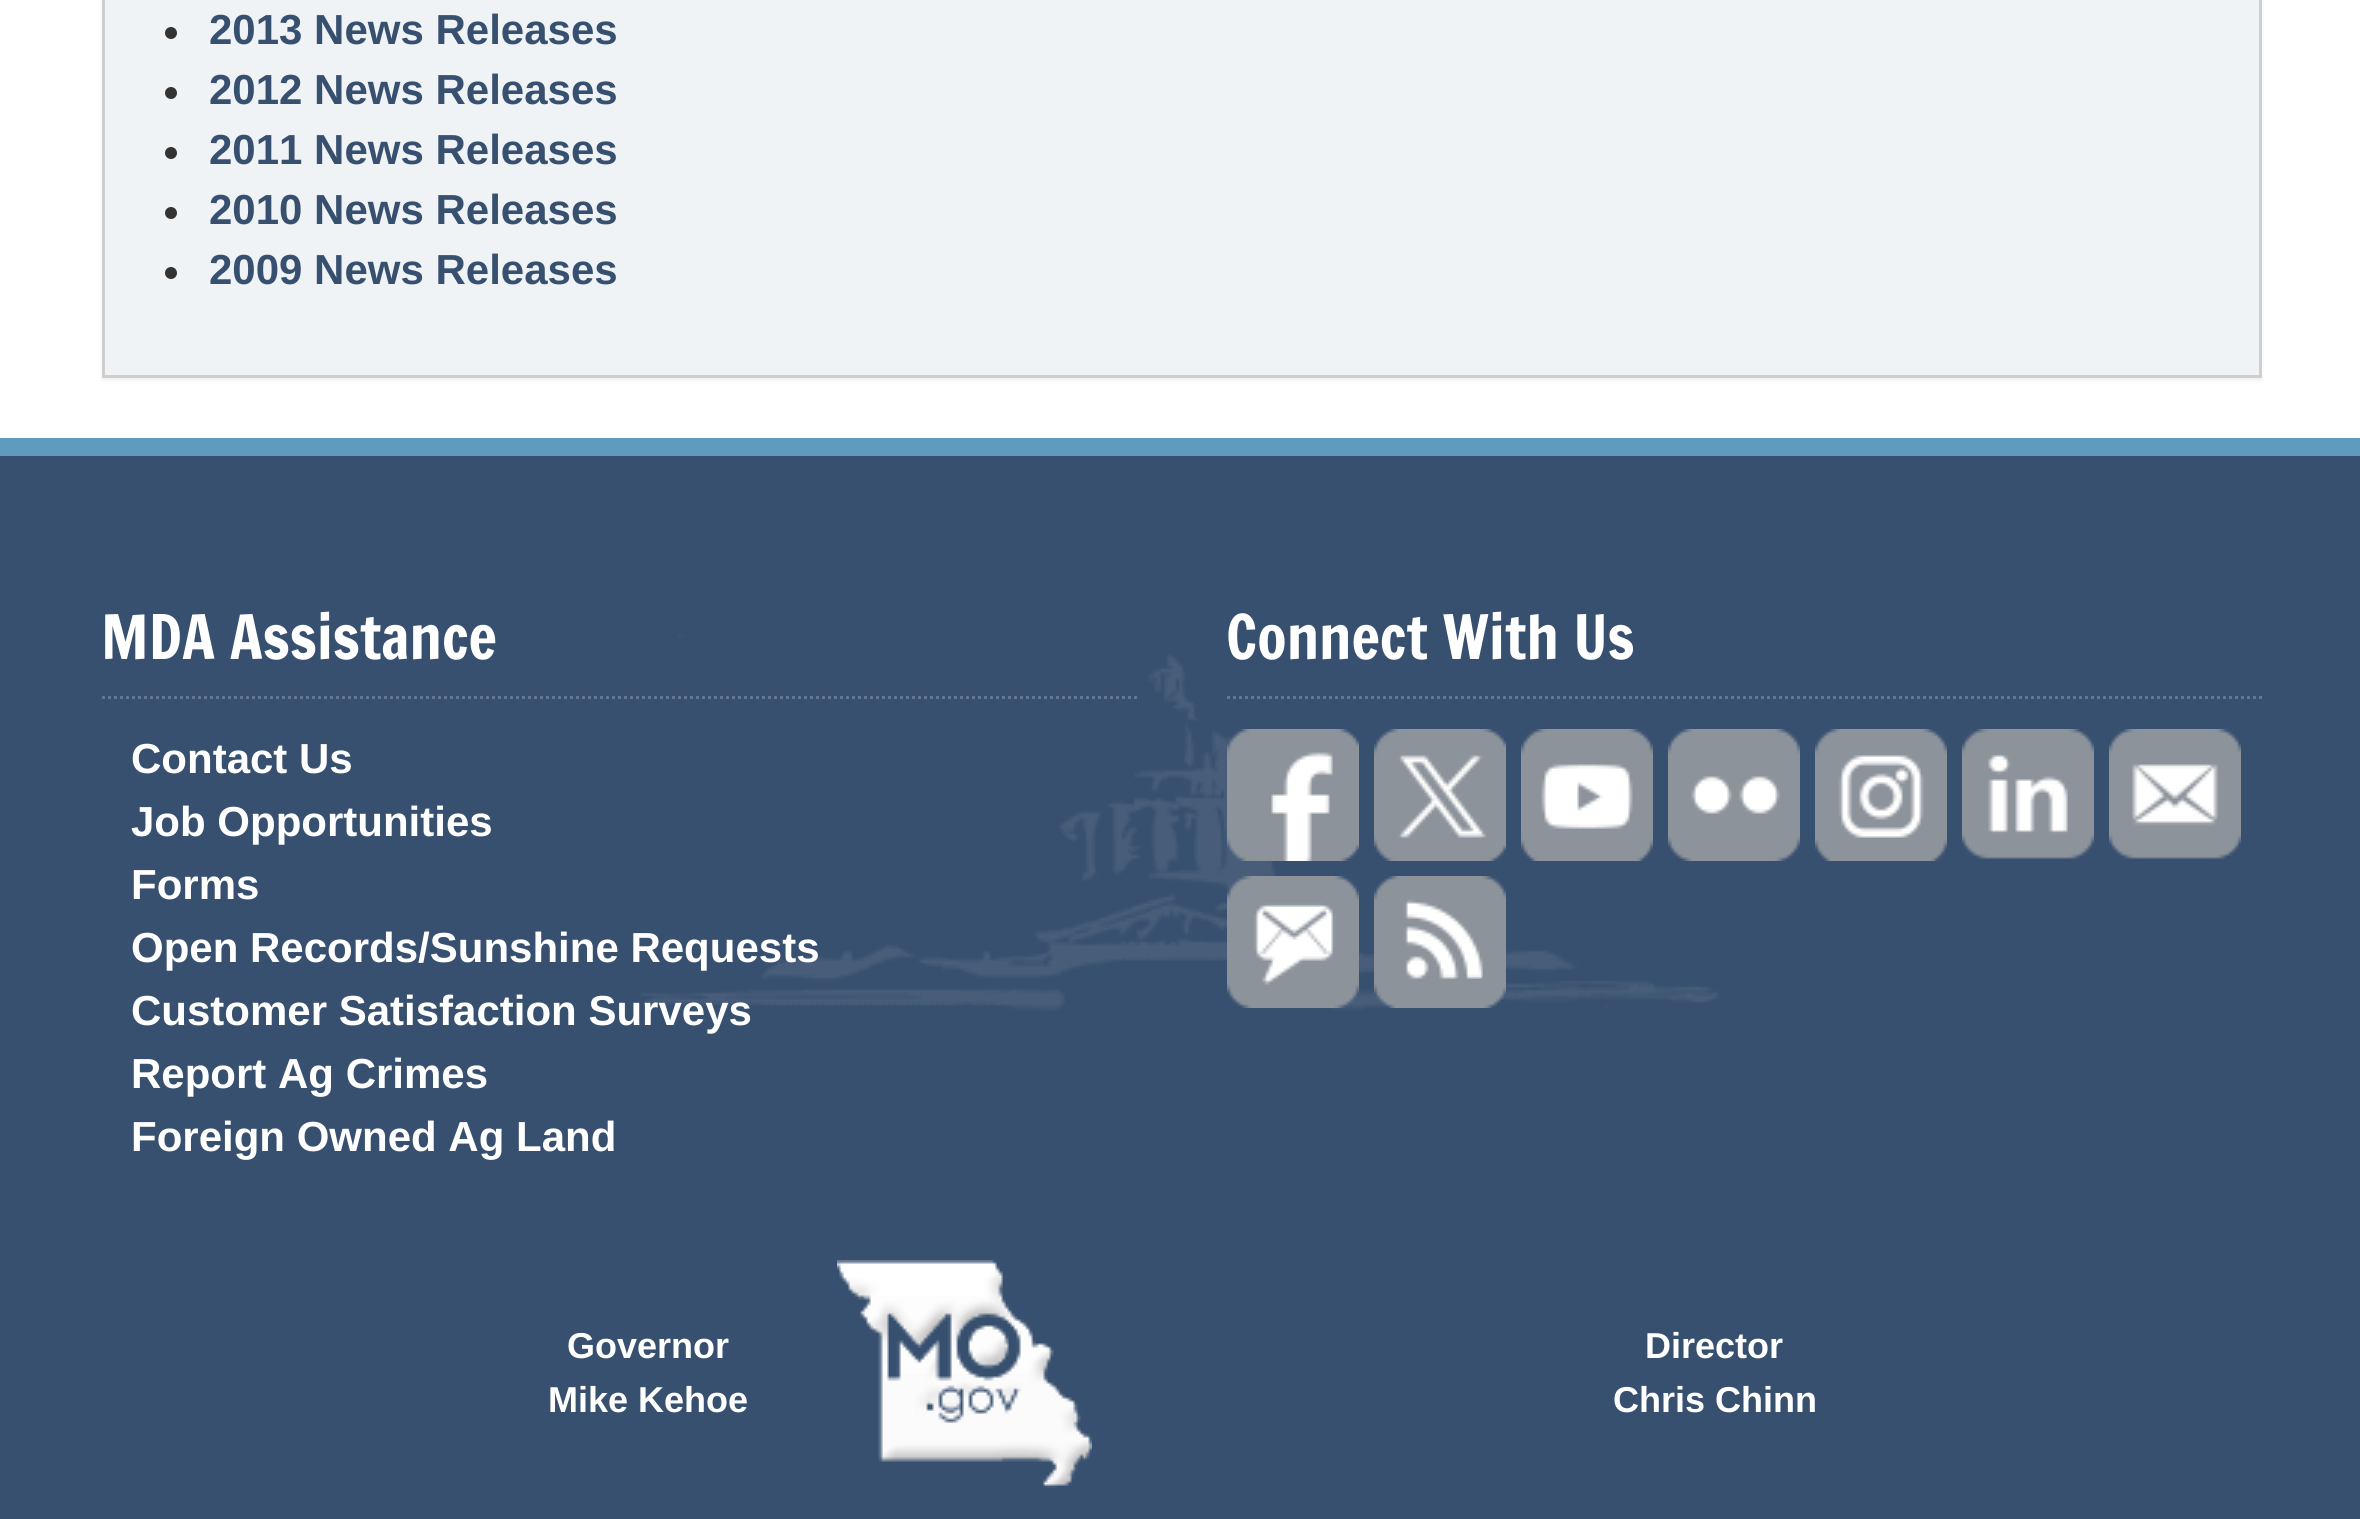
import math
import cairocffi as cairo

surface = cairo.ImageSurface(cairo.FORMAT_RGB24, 2360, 1519)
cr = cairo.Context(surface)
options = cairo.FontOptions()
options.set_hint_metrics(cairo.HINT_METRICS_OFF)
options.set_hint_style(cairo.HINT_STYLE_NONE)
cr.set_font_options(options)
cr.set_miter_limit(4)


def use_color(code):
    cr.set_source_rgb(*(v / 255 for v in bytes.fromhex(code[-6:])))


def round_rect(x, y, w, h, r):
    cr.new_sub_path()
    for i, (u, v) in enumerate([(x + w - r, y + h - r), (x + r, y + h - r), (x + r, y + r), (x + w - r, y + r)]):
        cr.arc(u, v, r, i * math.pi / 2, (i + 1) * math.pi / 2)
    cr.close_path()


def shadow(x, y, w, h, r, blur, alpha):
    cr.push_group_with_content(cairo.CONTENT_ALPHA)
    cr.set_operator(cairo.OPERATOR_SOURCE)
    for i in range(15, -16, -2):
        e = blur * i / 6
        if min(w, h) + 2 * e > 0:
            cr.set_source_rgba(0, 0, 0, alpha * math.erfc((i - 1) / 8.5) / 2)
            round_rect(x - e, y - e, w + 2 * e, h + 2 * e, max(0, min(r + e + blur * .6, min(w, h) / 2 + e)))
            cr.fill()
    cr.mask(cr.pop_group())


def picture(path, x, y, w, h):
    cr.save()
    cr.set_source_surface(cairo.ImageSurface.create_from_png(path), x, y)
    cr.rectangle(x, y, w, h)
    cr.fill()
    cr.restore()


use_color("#ffffff")
cr.paint()
use_color("#000000")
shadow(102, -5, 2160, 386, 0, 1.5, 0.05)
use_color("#eff3f6")
cr.rectangle(103.5, -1.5, 2157, 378)
cr.fill_preserve()
use_color("#cfcfcf")
cr.set_line_width(3)
cr.stroke()
use_color("#333333")
cr.arc(171, 33, 6, 0, 2 * math.pi)
cr.fill()
cr.select_font_face("Liberation Sans", cairo.FONT_SLANT_NORMAL, cairo.FONT_WEIGHT_BOLD)
cr.set_font_size(42)
use_color("#38506f")
cr.move_to(209, 44)
cr.show_text("2013 News Releases")
use_color("#333333")
cr.new_path()
cr.arc(171, 93, 6, 0, 2 * math.pi)
cr.fill()
use_color("#38506f")
cr.move_to(209, 104)
cr.show_text("2012 News Releases")
use_color("#333333")
cr.new_path()
cr.arc(171, 153, 6, 0, 2 * math.pi)
cr.fill()
use_color("#38506f")
cr.move_to(209, 164)
cr.show_text("2011 News Releases")
use_color("#333333")
cr.new_path()
cr.arc(171, 213, 6, 0, 2 * math.pi)
cr.fill()
use_color("#38506f")
cr.move_to(209, 224)
cr.show_text("2010 News Releases")
use_color("#333333")
cr.new_path()
cr.arc(171, 273, 6, 0, 2 * math.pi)
cr.fill()
use_color("#38506f")
cr.move_to(209, 284)
cr.show_text("2009 News Releases")
cr.rectangle(0, 456, 2360, 1063)
cr.fill()
picture("img1.png", 639, 634, 1080, 377)
use_color("#5f9bbc")
cr.rectangle(0, 438, 2360, 18)
cr.fill()
cr.new_path()
cr.move_to(102, 697.5)
cr.line_to(1137, 697.5)
use_color("#627691")
cr.set_dash([3, 3])
cr.stroke()
cr.select_font_face("Francois One")
cr.set_font_size(60)
use_color("#ffffff")
cr.move_to(101, 659)
cr.show_text("MDA Assistance")
cr.select_font_face("Liberation Sans", cairo.FONT_SLANT_NORMAL, cairo.FONT_WEIGHT_BOLD)
cr.set_font_size(42)
cr.move_to(131, 773)
cr.show_text("Contact Us")
cr.move_to(131, 836)
cr.show_text("Job Opportunities")
cr.move_to(131, 899)
cr.show_text("Forms")
cr.move_to(131, 962)
cr.show_text("Open Records/Sunshine Requests")
cr.move_to(131, 1025)
cr.show_text("Customer Satisfaction Surveys")
cr.move_to(131, 1088)
cr.show_text("Report Ag Crimes")
cr.move_to(131, 1151)
cr.show_text("Foreign Owned Ag Land")
cr.new_path()
cr.move_to(1227, 697.5)
cr.line_to(2262, 697.5)
use_color("#627691")
cr.stroke()
cr.select_font_face("Francois One")
cr.set_font_size(60)
use_color("#ffffff")
cr.move_to(1226, 659)
cr.show_text("Connect With Us")
picture("img2.png", 1227, 729, 132, 132)
picture("img3.png", 1374, 729, 132, 132)
picture("img4.png", 1521, 729, 132, 132)
picture("img5.png", 1668, 729, 132, 132)
picture("img6.png", 1815, 729, 132, 132)
picture("img7.png", 1962, 729, 132, 130)
picture("img8.png", 2109, 729, 132, 130)
picture("img9.png", 1227, 876, 132, 132)
picture("img10.png", 1374, 876, 132, 132)
cr.select_font_face("Liberation Sans", cairo.FONT_SLANT_NORMAL, cairo.FONT_WEIGHT_BOLD)
cr.set_font_size(36)
cr.move_to(567, 1358)
cr.show_text("Governor")
cr.move_to(548, 1412)
cr.show_text("Mike Kehoe")
picture("img11.png", 837, 1260, 255, 228)
cr.move_to(1645, 1358)
cr.show_text("Director")
cr.move_to(1613, 1412)
cr.show_text("Chris Chinn")
surface.write_to_png("result.png")
